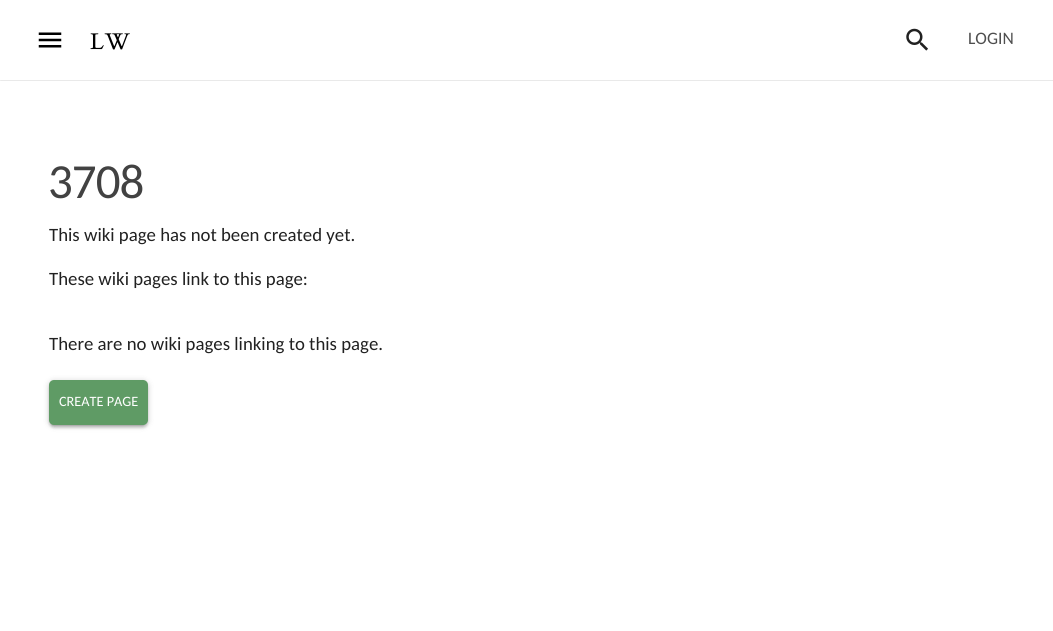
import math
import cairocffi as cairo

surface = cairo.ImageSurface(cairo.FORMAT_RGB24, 1053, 631)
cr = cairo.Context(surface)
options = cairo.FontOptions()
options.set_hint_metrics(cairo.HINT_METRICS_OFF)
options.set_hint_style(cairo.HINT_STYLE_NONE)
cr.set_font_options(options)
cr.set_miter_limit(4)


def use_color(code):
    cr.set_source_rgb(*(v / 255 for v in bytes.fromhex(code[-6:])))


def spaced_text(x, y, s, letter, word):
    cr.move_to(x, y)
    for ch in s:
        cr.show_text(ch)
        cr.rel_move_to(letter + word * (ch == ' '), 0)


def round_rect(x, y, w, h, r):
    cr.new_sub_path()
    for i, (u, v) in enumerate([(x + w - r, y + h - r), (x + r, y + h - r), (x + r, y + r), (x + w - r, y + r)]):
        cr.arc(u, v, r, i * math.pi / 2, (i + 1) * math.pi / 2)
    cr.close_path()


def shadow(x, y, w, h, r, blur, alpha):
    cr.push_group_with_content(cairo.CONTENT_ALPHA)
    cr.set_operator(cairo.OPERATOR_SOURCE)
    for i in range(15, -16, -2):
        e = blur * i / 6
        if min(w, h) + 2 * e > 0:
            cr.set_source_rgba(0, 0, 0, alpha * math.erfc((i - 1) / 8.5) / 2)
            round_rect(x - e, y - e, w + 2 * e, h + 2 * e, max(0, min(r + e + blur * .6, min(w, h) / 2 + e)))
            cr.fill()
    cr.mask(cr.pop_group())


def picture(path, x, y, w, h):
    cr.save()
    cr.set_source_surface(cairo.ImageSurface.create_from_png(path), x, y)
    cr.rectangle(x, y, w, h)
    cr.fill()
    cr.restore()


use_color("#ffffff")
cr.paint()
cr.save()
cr.rectangle(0, 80, 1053, 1)
cr.clip()
use_color("#000000")
shadow(0, 1, 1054, 80, 0, 0.5, 0.05)
shadow(0, 1, 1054, 80, 0, 0.5, 0.05)
cr.restore()
picture("img1.png", 38, 32, 24, 16)
cr.select_font_face("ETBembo")
cr.set_font_size(24)
use_color("#000000")
cr.move_to(90, 49)
cr.show_text("LW")
picture("img2.png", 906, 28, 22, 23)
cr.select_font_face("Carlito")
cr.set_font_size(17.5)
use_color("#4e4e4e")
cr.move_to(968, 44)
cr.show_text("LOGIN")
cr.set_font_size(49)
use_color("#424242")
spaced_text(48, 198, "3708", -1, 0)
cr.set_font_size(18.8)
use_color("#212121")
cr.move_to(49, 241)
cr.show_text("This wiki page has not been created yet.")
cr.move_to(49, 285)
cr.show_text("These wiki pages link to this page:")
cr.move_to(49, 350)
cr.show_text("There are no wiki pages linking to this page.")
use_color("#000000")
shadow(51, 386, 94, 40, 2.5, 0.5, 0.12)
shadow(49, 383, 99, 45, 5, 1, 0.14)
shadow(49, 381, 99, 45, 5, 3, 0.2)
use_color("#5f9b65")
round_rect(49, 380, 99, 45, 5)
cr.fill()
cr.set_font_size(14.25)
use_color("#ffffff")
cr.move_to(59, 406)
cr.show_text("CREATE PAGE")
surface.write_to_png("result.png")
